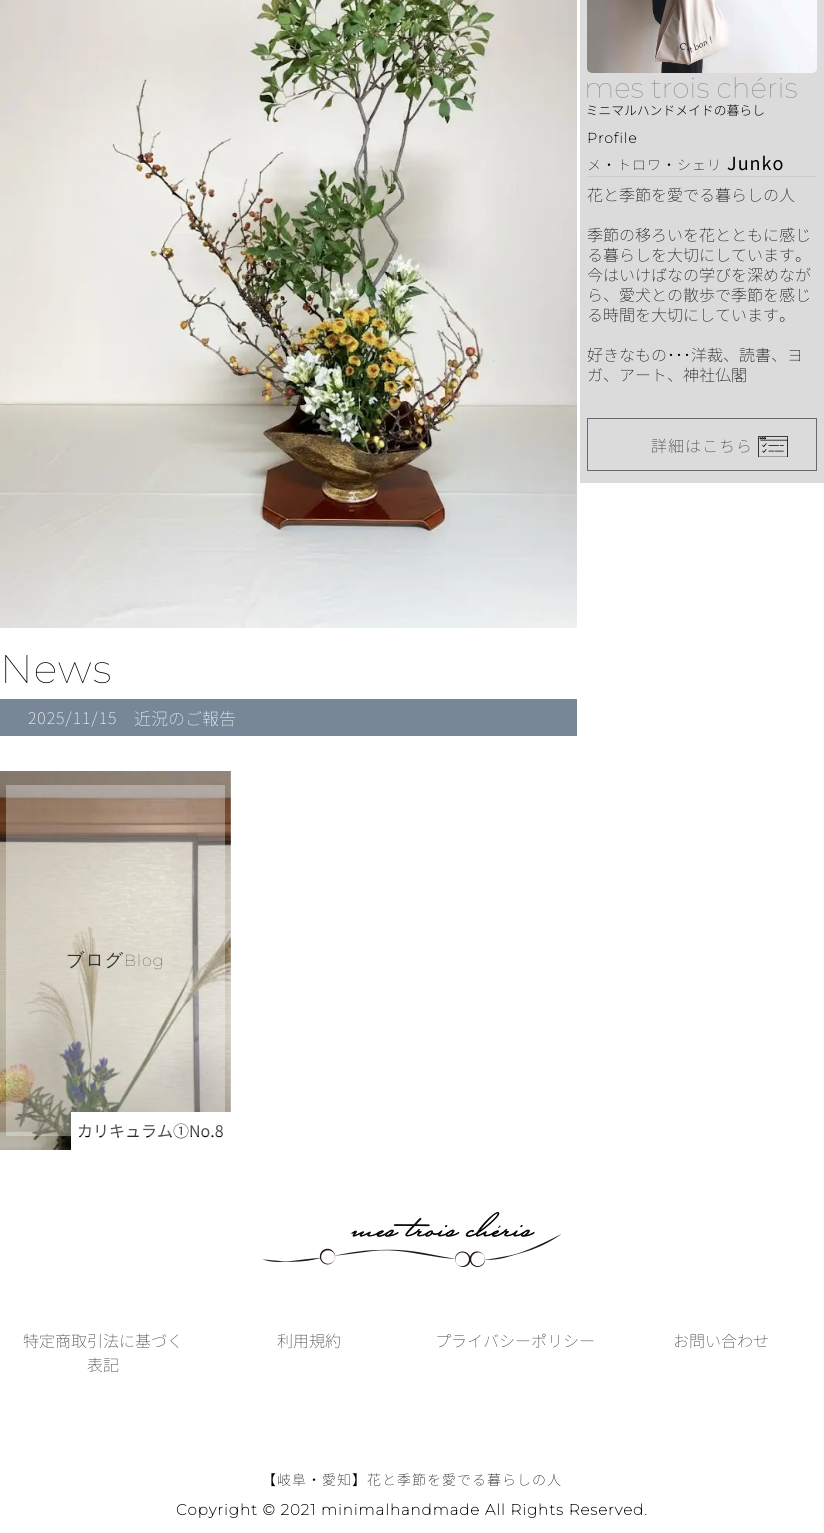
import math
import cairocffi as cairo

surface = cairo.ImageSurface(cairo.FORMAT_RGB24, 824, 1533)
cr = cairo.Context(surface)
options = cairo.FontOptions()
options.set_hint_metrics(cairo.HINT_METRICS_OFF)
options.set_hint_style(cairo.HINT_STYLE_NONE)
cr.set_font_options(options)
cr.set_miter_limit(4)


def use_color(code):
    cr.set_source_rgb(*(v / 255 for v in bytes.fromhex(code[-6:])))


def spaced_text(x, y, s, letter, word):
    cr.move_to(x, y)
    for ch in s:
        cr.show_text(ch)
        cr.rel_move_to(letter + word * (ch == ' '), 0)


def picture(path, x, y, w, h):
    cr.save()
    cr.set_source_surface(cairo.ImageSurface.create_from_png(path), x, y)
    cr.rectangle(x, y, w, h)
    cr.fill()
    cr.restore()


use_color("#ffffff")
cr.paint()
use_color("#dbdbdb")
cr.rectangle(580, 0, 244, 483)
cr.fill()
picture("img1.png", 587, 0, 230, 73)
picture("img2.png", 587, 77, 210, 39)
use_color("#cccccc")
cr.rectangle(587, 176, 230, 1)
cr.fill()
cr.select_font_face("Montserrat", cairo.FONT_SLANT_NORMAL, cairo.FONT_WEIGHT_BOLD)
cr.set_font_size(14)
use_color("#000000")
spaced_text(587, 143, "Profile", 1, 0)
cr.select_font_face("Noto Sans JP Thin")
spaced_text(587, 170, "メ・トロワ・シェリ", 1, 0)
cr.select_font_face("Noto Sans JP")
cr.set_font_size(18)
spaced_text(727, 170, "Junko", 1, 0)
cr.select_font_face("Noto Sans JP Thin")
cr.set_font_size(16)
cr.move_to(587, 201)
cr.show_text("花と季節を愛でる暮らしの人")
cr.move_to(587, 241)
cr.show_text("季節の移ろいを花とともに感じ")
cr.move_to(587, 261)
cr.show_text("る暮らしを大切にしています。")
cr.move_to(587, 281)
cr.show_text("今はいけばなの学びを深めなが")
cr.move_to(587, 301)
cr.show_text("ら、愛犬との散歩で季節を感じ")
cr.move_to(587, 321)
cr.show_text("る時間を大切にしています。")
cr.move_to(587, 361)
cr.show_text("好きなもの･･･洋裁、読書、ヨ")
cr.move_to(587, 381)
cr.show_text("ガ、アート、神社仏閣")
cr.rectangle(587.5, 418.5, 229, 52)
use_color("#696969")
cr.set_line_width(1)
cr.stroke()
use_color("#333333")
spaced_text(651, 452, "詳細はこちら", 1, 0)
picture("img3.png", 758, 436, 30, 21)
picture("img4.png", 0, 0, 577, 628)
cr.select_font_face("Montserrat Thin")
cr.set_font_size(40)
use_color("#000000")
spaced_text(0, 683, "News", 1, 0)
use_color("#778798")
cr.rectangle(0, 699, 577, 37)
cr.fill()
cr.select_font_face("Noto Sans JP Thin")
cr.set_font_size(16)
use_color("#ffffff")
spaced_text(28, 724, "2025/11/15", 1, 0)
cr.set_font_size(17)
cr.move_to(134, 725)
cr.show_text("近況のご報告")
picture("img5.png", 0, 771, 231, 379)
cr.rectangle(71, 1112, 160, 38)
cr.fill()
cr.select_font_face("Noto Sans JP")
cr.set_font_size(16)
use_color("#000000")
cr.move_to(77, 1137)
cr.show_text("カリキュラム①No.8")
cr.set_source_rgba(1, 1, 1, 0.32)
cr.rectangle(6, 785, 219, 351)
cr.fill()
cr.select_font_face("WenQuanYi Zen Hei Medium")
cr.set_font_size(18)
use_color("#333333")
spaced_text(66, 966, "ブログ", 1, 0)
cr.select_font_face("Montserrat Thin")
cr.set_font_size(16)
spaced_text(124, 966, "Blog", 1, 0)
picture("img6.png", 263, 1212, 298, 55)
cr.select_font_face("Noto Sans JP Thin")
cr.move_to(23, 1347)
cr.show_text("特定商取引法に基づく")
cr.move_to(87, 1371)
cr.show_text("表記")
cr.move_to(277, 1347)
cr.show_text("利用規約")
cr.move_to(435, 1347)
cr.show_text("プライバシーポリシー")
cr.move_to(673, 1347)
cr.show_text("お問い合わせ")
cr.set_font_size(14)
use_color("#000000")
spaced_text(262, 1485, "【岐阜・愛知】花と季節を愛でる暮らしの人", 1, 0)
cr.select_font_face("Montserrat", cairo.FONT_SLANT_NORMAL, cairo.FONT_WEIGHT_BOLD)
cr.set_font_size(15)
spaced_text(176, 1515, "Copyright © 2021 minimalhandmade All Rights Reserved.", 1, 0)
surface.write_to_png("result.png")
